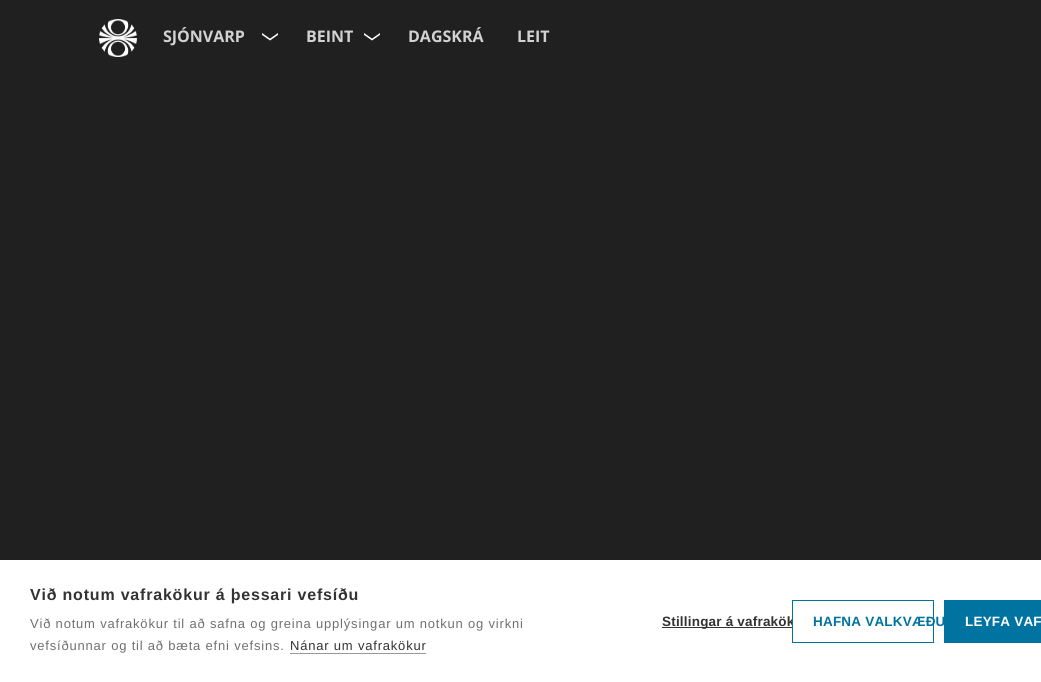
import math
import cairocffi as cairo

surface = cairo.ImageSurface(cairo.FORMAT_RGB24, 1041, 682)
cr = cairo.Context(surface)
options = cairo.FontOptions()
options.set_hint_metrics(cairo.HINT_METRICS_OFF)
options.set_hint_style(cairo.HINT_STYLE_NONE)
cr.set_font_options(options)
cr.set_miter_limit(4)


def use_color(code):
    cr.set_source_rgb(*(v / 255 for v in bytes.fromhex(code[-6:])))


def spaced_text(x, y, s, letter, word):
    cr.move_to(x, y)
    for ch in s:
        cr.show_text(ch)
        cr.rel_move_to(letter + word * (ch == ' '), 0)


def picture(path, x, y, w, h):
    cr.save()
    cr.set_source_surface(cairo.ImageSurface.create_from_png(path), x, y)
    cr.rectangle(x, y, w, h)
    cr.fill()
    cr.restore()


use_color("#202020")
cr.paint()
picture("img1.png", 99, 19, 38, 38)
cr.select_font_face("Open Sans", cairo.FONT_SLANT_NORMAL, cairo.FONT_WEIGHT_BOLD)
cr.set_font_size(16)
use_color("#d2d2d2")
cr.move_to(163, 42)
cr.show_text("SJÓNVARP")
picture("img2.png", 262, 33, 16, 8)
cr.move_to(306, 42)
cr.show_text("BEINT")
picture("img2.png", 364, 33, 16, 8)
cr.move_to(408, 42)
cr.show_text("DAGSKRÁ")
cr.move_to(517, 42)
cr.show_text("LEIT")
use_color("#ffffff")
cr.rectangle(0, 560, 1041, 122)
cr.fill()
cr.select_font_face("Liberation Sans", cairo.FONT_SLANT_NORMAL, cairo.FONT_WEIGHT_BOLD)
use_color("#333333")
spaced_text(30, 600, "Við notum vafrakökur á þessari vefsíðu", 0.8, 0)
cr.select_font_face("Liberation Sans")
cr.set_font_size(13)
use_color("#707070")
spaced_text(30, 628, "Við notum vafrakökur til að safna og greina upplýsingar um notkun og virkni", 0.8, 0)
spaced_text(30, 650, "vefsíðunnar og til að bæta efni vefsins.", 0.8, 0)
use_color("#333333")
spaced_text(290, 650, "Nánar um vafrakökur", 0.8, 0)
use_color("#999999")
cr.rectangle(290, 653, 136, 1)
cr.fill()
use_color("#333333")
cr.rectangle(662, 627, 130, 1)
cr.fill()
cr.select_font_face("Liberation Sans", cairo.FONT_SLANT_NORMAL, cairo.FONT_WEIGHT_BOLD)
cr.set_font_size(13.5)
spaced_text(662, 626, "Stillingar á vafrakök", 0.2, 0)
use_color("#ffffff")
cr.rectangle(793, 618, 2, 8)
cr.fill()
cr.rectangle(792.5, 600.5, 141, 42)
use_color("#0073a0")
cr.set_line_width(1)
cr.stroke()
spaced_text(813, 626, "HAFNA VALKVÆÐU", 0.2, 0)
cr.rectangle(944, 600, 97, 43)
cr.fill()
use_color("#ffffff")
spaced_text(965, 626, "LEYFA VAF", 0.2, 0)
surface.write_to_png("result.png")
